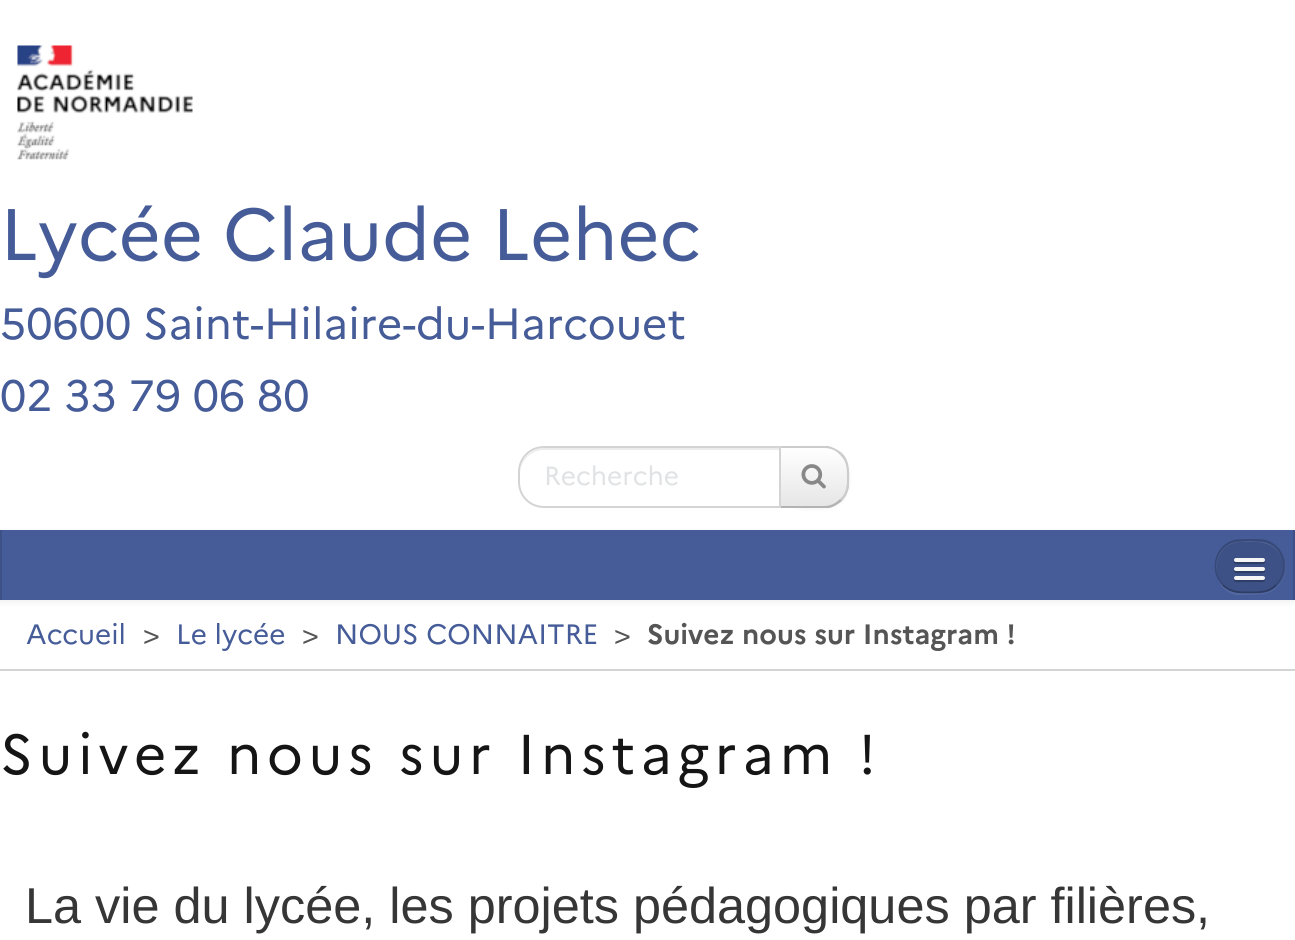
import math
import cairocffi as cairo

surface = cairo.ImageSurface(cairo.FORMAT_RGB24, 1295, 940)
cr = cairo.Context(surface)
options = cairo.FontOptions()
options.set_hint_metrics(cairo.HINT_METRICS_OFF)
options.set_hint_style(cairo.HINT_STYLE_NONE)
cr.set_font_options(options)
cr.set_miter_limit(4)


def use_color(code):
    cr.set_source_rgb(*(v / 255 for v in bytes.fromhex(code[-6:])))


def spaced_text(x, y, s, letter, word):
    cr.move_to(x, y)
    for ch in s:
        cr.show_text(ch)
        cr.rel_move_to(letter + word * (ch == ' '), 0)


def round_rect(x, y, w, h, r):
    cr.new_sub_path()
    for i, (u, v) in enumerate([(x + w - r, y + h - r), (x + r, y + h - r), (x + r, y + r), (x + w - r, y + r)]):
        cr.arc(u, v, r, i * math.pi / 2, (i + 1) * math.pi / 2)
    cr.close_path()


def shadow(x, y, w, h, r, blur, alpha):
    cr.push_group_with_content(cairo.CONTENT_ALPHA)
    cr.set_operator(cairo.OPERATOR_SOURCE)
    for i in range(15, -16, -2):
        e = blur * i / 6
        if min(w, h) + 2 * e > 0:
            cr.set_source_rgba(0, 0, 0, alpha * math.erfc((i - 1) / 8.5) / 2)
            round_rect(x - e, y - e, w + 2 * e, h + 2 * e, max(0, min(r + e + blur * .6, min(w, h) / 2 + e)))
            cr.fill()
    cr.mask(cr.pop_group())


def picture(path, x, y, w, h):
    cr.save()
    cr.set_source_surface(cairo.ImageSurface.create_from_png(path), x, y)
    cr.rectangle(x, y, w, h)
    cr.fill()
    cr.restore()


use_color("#ffffff")
cr.paint()
picture("img1.png", 17, 45, 176, 115)
cr.select_font_face("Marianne")
cr.set_font_size(72.75)
use_color("#455c98")
cr.move_to(0, 260)
cr.show_text("Lycée Claude Lehec")
cr.set_font_size(43.7)
cr.move_to(0, 339)
cr.show_text("50600 Saint-Hilaire-du-Harcouet")
cr.move_to(0, 411)
cr.show_text("02 33 79 06 80")
use_color("#000000")
shadow(779, 448, 70, 61, 25, 2, 0.05)
cr.save()
cr.new_path()
cr.move_to(779, 446)
cr.line_to(824, 446)
cr.curve_to(838, 446, 849, 457, 849, 471)
cr.line_to(849, 483)
cr.curve_to(849, 497, 838, 508, 824, 508)
cr.line_to(779, 508)
cr.close_path()
cr.clip()
gradient = cairo.LinearGradient(814, 448, 814, 506)
gradient.add_color_stop_rgba(0, 1, 1, 1, 1)
gradient.add_color_stop_rgba(1, 0.902, 0.902, 0.902, 1)
cr.set_source(gradient)
cr.rectangle(781, 448, 68, 58)
cr.fill()
cr.restore()
use_color("#cccccc")
cr.new_path()
cr.move_to(779, 446)
cr.line_to(828, 446)
cr.curve_to(833, 447, 838, 450, 842, 453)
cr.line_to(840, 455)
cr.curve_to(836, 450, 830, 448, 824, 448)
cr.line_to(780, 448)
cr.close_path()
cr.fill()
cr.new_path()
cr.move_to(849, 487)
cr.curve_to(848, 492, 846, 497, 842, 501)
cr.line_to(840, 499)
cr.curve_to(847, 493, 847, 485, 847, 477)
cr.curve_to(847, 469, 847, 461, 840, 455)
cr.line_to(842, 453)
cr.curve_to(851, 462, 849, 475, 849, 487)
cr.close_path()
cr.fill()
use_color("#b3b3b3")
cr.new_path()
cr.move_to(779, 508)
cr.line_to(780, 506)
cr.line_to(824, 506)
cr.curve_to(831, 506, 836, 503, 840, 499)
cr.line_to(842, 501)
cr.curve_to(838, 504, 834, 507, 829, 508)
cr.close_path()
cr.fill()
use_color("#ffffff")
cr.new_path()
cr.move_to(544, 446)
cr.line_to(781, 446)
cr.line_to(781, 508)
cr.line_to(544, 508)
cr.curve_to(529.5, 508, 518, 496.5, 518, 482)
cr.line_to(518, 472)
cr.curve_to(518, 457.5, 529.5, 446, 544, 446)
cr.close_path()
cr.fill()
use_color("#ececec")
cr.new_path()
cr.move_to(544, 450)
cr.line_to(779, 450)
cr.line_to(779, 448)
cr.line_to(545, 448)
cr.curve_to(531, 448, 520, 459, 520, 473)
cr.line_to(520, 474)
cr.curve_to(520, 461, 531, 450, 544, 450)
cr.close_path()
cr.fill()
cr.new_path()
cr.move_to(544, 447)
cr.line_to(780, 447)
cr.line_to(780, 507)
cr.line_to(544, 507)
cr.curve_to(530, 507, 519, 496, 519, 482)
cr.line_to(519, 472)
cr.curve_to(519, 458, 530, 447, 544, 447)
cr.close_path()
use_color("#d4d4d4")
cr.stroke()
cr.set_font_size(26.25)
use_color("#e0e2e4")
cr.move_to(544, 485)
cr.show_text("Recherche")
picture("img2.png", 801, 464, 25, 25)
use_color("#000000")
shadow(0, 532, 1295, 70, 0, 3.5, 0.07)
use_color("#455c98")
cr.rectangle(2, 530, 1291, 70)
cr.fill()
use_color("#3d5186")
cr.rectangle(1293, 530, 2, 70)
cr.fill()
cr.rectangle(0, 530, 2, 70)
cr.fill()
use_color("#5368a0")
cr.new_path()
cr.move_to(1216, 574)
cr.curve_to(1218, 585, 1226, 593, 1236, 595)
cr.line_to(1250, 595)
cr.line_to(1264, 594)
cr.curve_to(1280, 591, 1289, 574, 1284, 559)
cr.curve_to(1287, 574, 1279, 590, 1264, 593)
cr.line_to(1250, 593)
cr.line_to(1236, 593)
cr.curve_to(1227, 591, 1218, 584, 1216, 574)
cr.close_path()
cr.fill()
use_color("#3d5186")
round_rect(1215, 539, 70, 54, 26)
cr.fill()
cr.save()
round_rect(1215, 539, 70, 54, 26)
cr.clip()
cr.rectangle(1215, 541, 70, 51)
cr.fill()
cr.restore()
use_color("#506292")
cr.new_path()
cr.move_to(1241, 542)
cr.curve_to(1256, 542, 1273, 540, 1281, 557)
cr.curve_to(1283, 562, 1284, 568, 1282, 574)
cr.curve_to(1286, 560, 1278, 544, 1263, 542)
cr.line_to(1250, 541)
cr.line_to(1236, 542)
cr.curve_to(1222, 544, 1213, 560, 1217, 574)
cr.curve_to(1214, 559, 1223, 542, 1241, 542)
cr.close_path()
cr.fill()
cr.new_path()
cr.move_to(1276, 585)
cr.curve_to(1268.5, 592.5, 1259.5, 592.5, 1249.5, 592.5)
cr.curve_to(1239.5, 592.5, 1230.5, 592.5, 1223, 585)
cr.set_source_rgba(0, 0, 0, 0.25)
cr.set_line_width(1.8)
cr.stroke()
cr.new_path()
cr.move_to(1223, 585)
cr.curve_to(1216.5, 578.5, 1214, 569, 1216, 560.5)
cr.curve_to(1218, 550.5, 1226, 542.5, 1236, 540.5)
cr.line_to(1249.5, 540)
cr.line_to(1263, 540.5)
cr.curve_to(1275, 543, 1283.5, 553.5, 1283.5, 565)
cr.curve_to(1284, 572.5, 1281.5, 579.5, 1276, 585)
cr.set_source_rgba(0, 0, 0, 0.1)
cr.stroke()
use_color("#2e3d65")
cr.new_path()
cr.move_to(1234, 561)
cr.curve_to(1232.5, 565, 1239.5, 564, 1240.5, 564)
cr.line_to(1258.5, 564)
cr.curve_to(1259.5, 564, 1266.5, 565, 1265, 561)
cr.line_to(1263.5, 561.5)
cr.line_to(1235.5, 561.5)
cr.close_path()
cr.fill()
use_color("#f5f5f5")
round_rect(1234, 558, 31, 4, 2)
cr.fill()
use_color("#2e3d65")
cr.new_path()
cr.move_to(1234.5, 570)
cr.curve_to(1232, 574, 1240, 573, 1240.5, 573)
cr.line_to(1258.5, 573)
cr.curve_to(1259, 573, 1267, 574, 1264.5, 570)
cr.line_to(1263.5, 570.5)
cr.line_to(1235.5, 570.5)
cr.close_path()
cr.fill()
use_color("#f5f5f5")
round_rect(1234, 567, 31, 4, 2)
cr.fill()
use_color("#2e3d65")
cr.new_path()
cr.move_to(1234.5, 579)
cr.line_to(1234, 580.5)
cr.curve_to(1234.5, 583, 1239.5, 582, 1240.5, 582)
cr.line_to(1258.5, 582)
cr.curve_to(1259.5, 582, 1264.5, 583, 1265, 580.5)
cr.line_to(1264.5, 579)
cr.curve_to(1263.5, 579.5, 1235.5, 579.5, 1234.5, 579)
cr.close_path()
cr.fill()
use_color("#f5f5f5")
round_rect(1234, 576, 31, 4, 2)
cr.fill()
use_color("#d4d4d4")
cr.rectangle(0, 669, 1295, 2)
cr.fill()
cr.set_font_size(28)
use_color("#455c98")
cr.move_to(26, 644)
cr.show_text("Accueil")
use_color("#555555")
cr.move_to(143, 644)
cr.show_text(">")
use_color("#455c98")
cr.move_to(176, 644)
cr.show_text("Le lycée")
use_color("#555555")
cr.move_to(302, 644)
cr.show_text(">")
use_color("#455c98")
cr.move_to(335, 644)
cr.show_text("NOUS CONNAITRE")
use_color("#555555")
cr.move_to(614, 644)
cr.show_text(">")
cr.select_font_face("Marianne", cairo.FONT_SLANT_NORMAL, cairo.FONT_WEIGHT_BOLD)
cr.move_to(647, 644)
cr.show_text("Suivez nous sur Instagram !")
cr.select_font_face("Marianne")
cr.set_font_size(56)
use_color("#151515")
spaced_text(0, 774, "Suivez nous sur Instagram !", 5.6, 0)
cr.select_font_face("Liberation Sans")
cr.set_font_size(50.4)
use_color("#363636")
cr.move_to(25, 923)
cr.show_text("La vie du lycée, les projets pédagogiques par filières,")
surface.write_to_png("result.png")
